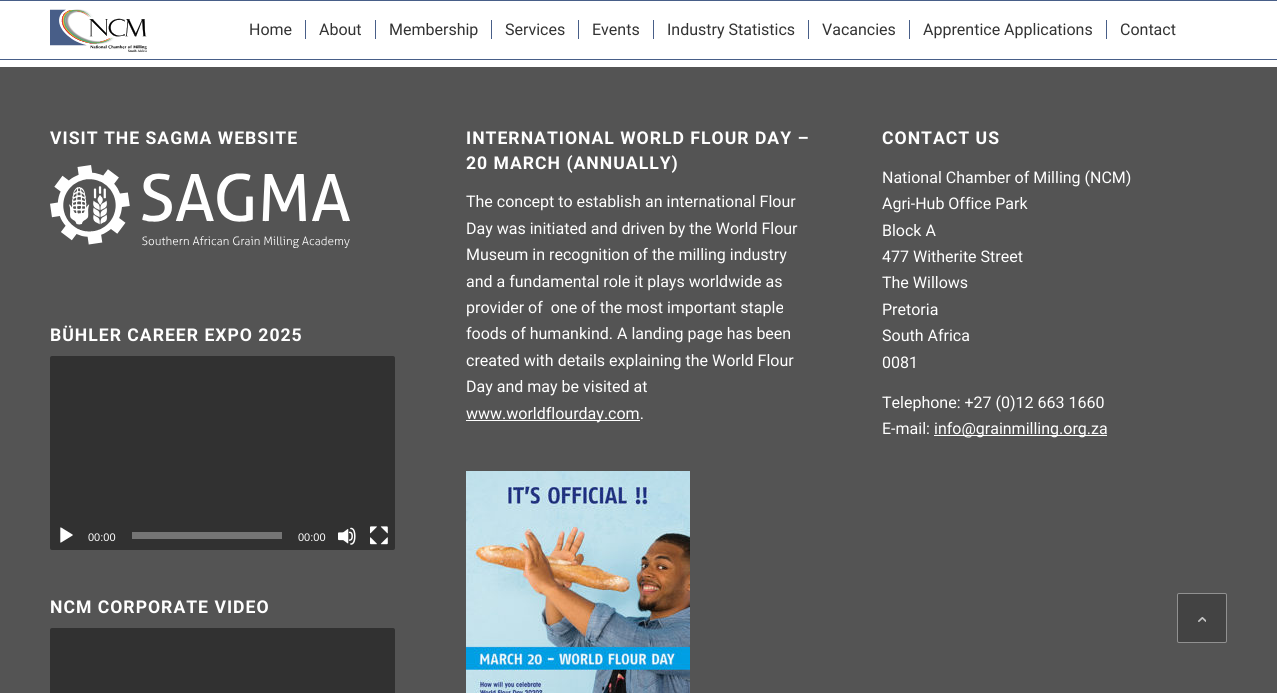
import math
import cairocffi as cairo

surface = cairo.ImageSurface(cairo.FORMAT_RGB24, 1277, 693)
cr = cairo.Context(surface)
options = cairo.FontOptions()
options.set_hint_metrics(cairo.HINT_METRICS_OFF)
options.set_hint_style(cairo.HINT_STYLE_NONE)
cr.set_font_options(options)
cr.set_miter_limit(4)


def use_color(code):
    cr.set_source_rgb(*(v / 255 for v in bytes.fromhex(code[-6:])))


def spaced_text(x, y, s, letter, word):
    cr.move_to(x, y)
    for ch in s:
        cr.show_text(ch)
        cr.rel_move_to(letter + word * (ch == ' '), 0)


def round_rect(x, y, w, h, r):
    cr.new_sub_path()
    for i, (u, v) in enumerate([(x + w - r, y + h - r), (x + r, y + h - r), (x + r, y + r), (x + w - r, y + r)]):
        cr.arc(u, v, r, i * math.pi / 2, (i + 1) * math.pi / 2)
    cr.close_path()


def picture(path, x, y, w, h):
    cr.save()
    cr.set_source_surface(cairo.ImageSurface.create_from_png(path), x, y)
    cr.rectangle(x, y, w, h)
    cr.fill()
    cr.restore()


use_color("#ffffff")
cr.paint()
use_color("#485e88")
cr.rectangle(0, 0, 1277, 1)
cr.fill()
cr.rectangle(0, 59, 1277, 1)
cr.fill()
picture("img1.png", 50, 9, 97, 43)
cr.select_font_face("Roboto")
cr.set_font_size(16)
use_color("#333333")
cr.move_to(249, 35)
cr.show_text("Home")
cr.move_to(319, 35)
cr.show_text("About")
use_color("#485e88")
cr.rectangle(305, 20, 1, 19)
cr.fill()
use_color("#333333")
cr.move_to(389, 35)
cr.show_text("Membership")
use_color("#485e88")
cr.rectangle(375, 20, 1, 19)
cr.fill()
use_color("#333333")
cr.move_to(505, 35)
cr.show_text("Services")
use_color("#485e88")
cr.rectangle(491, 20, 1, 19)
cr.fill()
use_color("#333333")
cr.move_to(592, 35)
cr.show_text("Events")
use_color("#485e88")
cr.rectangle(578, 20, 1, 19)
cr.fill()
use_color("#333333")
cr.move_to(667, 35)
cr.show_text("Industry Statistics")
use_color("#485e88")
cr.rectangle(653, 20, 1, 19)
cr.fill()
use_color("#333333")
cr.move_to(822, 35)
cr.show_text("Vacancies")
use_color("#485e88")
cr.rectangle(808, 20, 1, 19)
cr.fill()
use_color("#333333")
cr.move_to(923, 35)
cr.show_text("Apprentice Applications")
use_color("#485e88")
cr.rectangle(909, 20, 1, 19)
cr.fill()
use_color("#333333")
cr.move_to(1120, 35)
cr.show_text("Contact")
use_color("#485e88")
cr.rectangle(1106, 20, 1, 19)
cr.fill()
use_color("#545454")
cr.rectangle(0, 67, 1277, 626)
cr.fill()
cr.select_font_face("Roboto", cairo.FONT_SLANT_NORMAL, cairo.FONT_WEIGHT_BOLD)
cr.set_font_size(17.6)
use_color("#ffffff")
spaced_text(50, 144, "VISIT THE SAGMA WEBSITE", 1, 0)
picture("img2.png", 50, 165, 300, 83)
spaced_text(50, 341, "BÜHLER CAREER EXPO 2025", 1, 0)
use_color("#313131")
round_rect(50, 356, 345, 194, 2)
cr.fill()
picture("img3.png", 60, 527, 13, 16)
cr.select_font_face("Liberation Sans")
cr.set_font_size(11)
use_color("#ffffff")
cr.move_to(88, 541)
cr.show_text("00:00")
use_color("#757575")
cr.rectangle(132, 532, 150, 7)
cr.fill()
use_color("#ffffff")
cr.move_to(298, 541)
cr.show_text("00:00")
picture("img4.png", 338, 527, 18, 18)
picture("img5.png", 370, 526, 18, 19)
cr.select_font_face("Roboto", cairo.FONT_SLANT_NORMAL, cairo.FONT_WEIGHT_BOLD)
cr.set_font_size(17.6)
spaced_text(50, 613, "NCM CORPORATE VIDEO", 1, 0)
use_color("#313131")
round_rect(50, 628, 345, 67, 2)
cr.fill()
use_color("#ffffff")
spaced_text(466, 144, "INTERNATIONAL WORLD FLOUR DAY –", 1, 0)
spaced_text(466, 169, "20 MARCH (ANNUALLY)", 1, 0)
cr.select_font_face("Roboto")
cr.set_font_size(16)
cr.move_to(466, 207)
cr.show_text("The concept to establish an international Flour")
cr.move_to(466, 234)
cr.show_text("Day was initiated and driven by the World Flour")
cr.move_to(466, 260)
cr.show_text("Museum in recognition of the milling industry")
cr.move_to(466, 287)
cr.show_text("and a fundamental role it plays worldwide as")
cr.move_to(466, 313)
cr.show_text("provider of  one of the most important staple")
cr.move_to(466, 339)
cr.show_text("foods of humankind. A landing page has been")
cr.move_to(466, 366)
cr.show_text("created with details explaining the World Flour")
cr.move_to(466, 392)
cr.show_text("Day and may be visited at")
cr.rectangle(466, 420, 174, 1)
cr.fill()
cr.move_to(466, 419)
cr.show_text("www.worldflourday.com.")
picture("img6.png", 466, 471, 224, 222)
cr.select_font_face("Roboto", cairo.FONT_SLANT_NORMAL, cairo.FONT_WEIGHT_BOLD)
cr.set_font_size(17.6)
spaced_text(882, 144, "CONTACT US", 1, 0)
cr.select_font_face("Roboto")
cr.set_font_size(16)
cr.move_to(882, 183)
cr.show_text("National Chamber of Milling (NCM)")
cr.move_to(882, 209)
cr.show_text("Agri-Hub Office Park")
cr.move_to(882, 236)
cr.show_text("Block A")
cr.move_to(882, 262)
cr.show_text("477 Witherite Street")
cr.move_to(882, 288)
cr.show_text("The Willows")
cr.move_to(882, 315)
cr.show_text("Pretoria")
cr.move_to(882, 341)
cr.show_text("South Africa")
cr.move_to(882, 368)
cr.show_text("0081")
cr.move_to(882, 408)
cr.show_text("Telephone: +27 (0)12 663 1660")
cr.move_to(882, 434)
cr.show_text("E-mail:")
cr.rectangle(934, 435, 173, 1)
cr.fill()
cr.move_to(934, 434)
cr.show_text("info@grainmilling.org.za")
use_color("#434343")
round_rect(1177.5, 593.5, 49, 49, 1.5)
cr.fill_preserve()
use_color("#919191")
cr.set_line_width(1)
cr.stroke()
picture("img7.png", 1198, 617, 8, 5)
surface.write_to_png("result.png")
